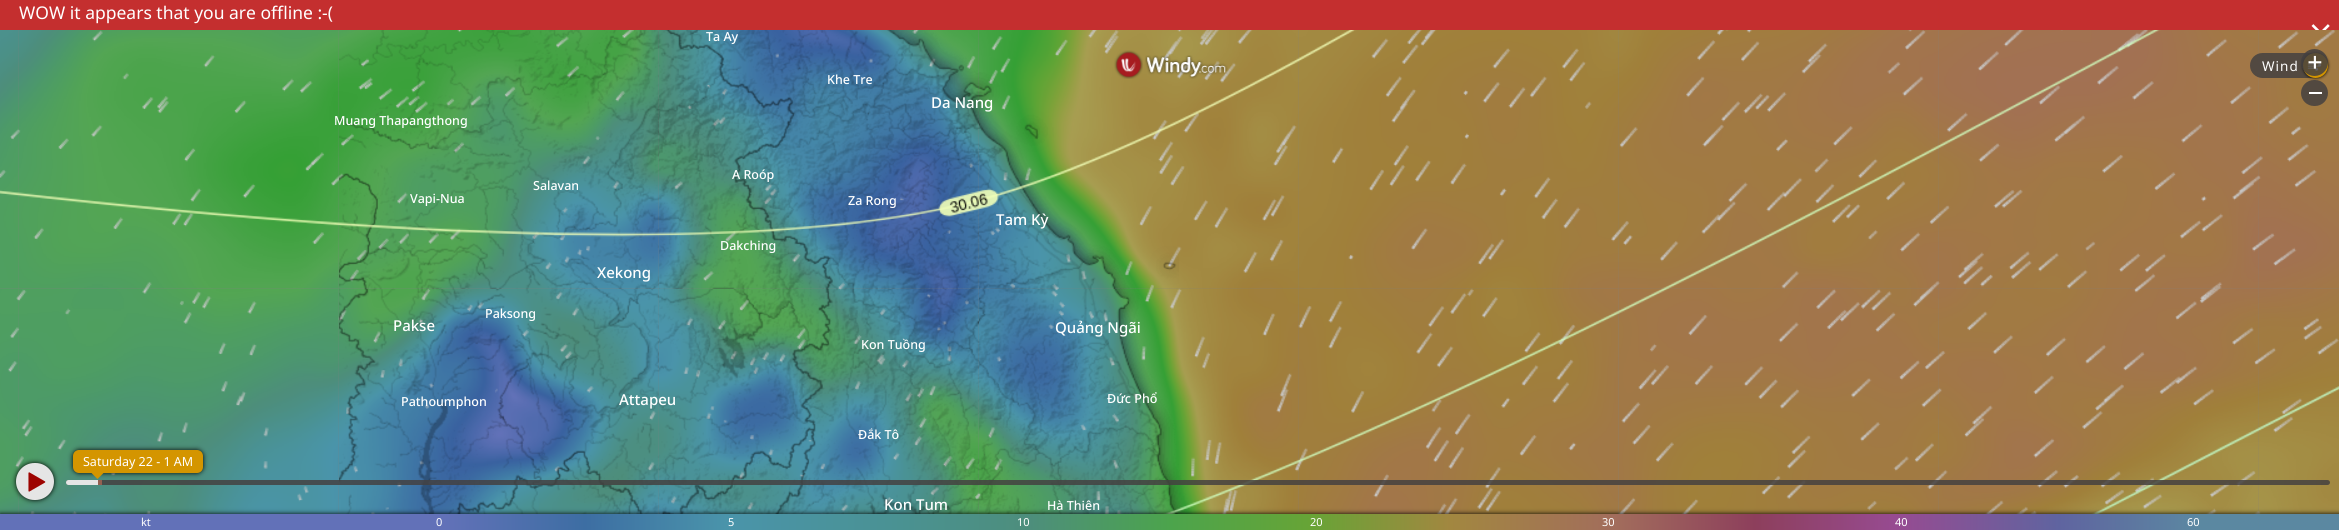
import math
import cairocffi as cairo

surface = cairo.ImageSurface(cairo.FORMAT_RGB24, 2339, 530)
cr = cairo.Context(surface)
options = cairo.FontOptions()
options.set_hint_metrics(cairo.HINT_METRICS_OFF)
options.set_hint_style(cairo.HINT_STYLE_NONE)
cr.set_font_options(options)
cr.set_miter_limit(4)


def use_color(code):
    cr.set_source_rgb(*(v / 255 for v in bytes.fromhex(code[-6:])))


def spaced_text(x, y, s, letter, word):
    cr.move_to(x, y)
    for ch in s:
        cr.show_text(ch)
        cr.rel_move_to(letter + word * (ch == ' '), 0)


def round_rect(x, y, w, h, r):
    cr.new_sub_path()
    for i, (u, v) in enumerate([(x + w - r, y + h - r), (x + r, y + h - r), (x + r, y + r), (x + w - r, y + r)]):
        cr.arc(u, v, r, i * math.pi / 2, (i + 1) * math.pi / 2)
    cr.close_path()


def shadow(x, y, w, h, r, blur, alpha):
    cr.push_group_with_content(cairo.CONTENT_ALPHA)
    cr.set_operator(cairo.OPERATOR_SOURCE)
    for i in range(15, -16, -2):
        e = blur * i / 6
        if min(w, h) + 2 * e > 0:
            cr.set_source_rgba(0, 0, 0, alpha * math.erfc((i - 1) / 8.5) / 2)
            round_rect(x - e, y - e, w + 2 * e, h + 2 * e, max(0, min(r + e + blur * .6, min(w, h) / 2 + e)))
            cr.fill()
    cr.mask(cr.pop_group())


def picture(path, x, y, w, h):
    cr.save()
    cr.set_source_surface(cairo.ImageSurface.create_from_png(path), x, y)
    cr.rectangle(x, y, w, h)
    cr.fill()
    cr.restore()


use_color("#808080")
cr.paint()
use_color("#c42f2f")
cr.rectangle(0, 0, 2339, 30)
cr.fill()
cr.select_font_face("Noto Sans")
cr.set_font_size(17.5)
use_color("#ffffff")
cr.move_to(19, 19)
cr.show_text("WOW it appears that you are offline :-(")
picture("img1.png", 2311, 24, 19, 6)
picture("img6.png", 978, 30, 321, 259)
picture("img15.png", 978, 288, 321, 226)
picture("img5.png", 658, 30, 321, 259)
picture("img14.png", 658, 288, 321, 226)
picture("img4.png", 338, 30, 321, 259)
picture("img3.png", 18, 30, 321, 259)
picture("img2.png", 0, 30, 19, 259)
picture("img7.png", 1298, 30, 321, 259)
picture("img16.png", 1298, 288, 321, 226)
picture("img8.png", 1618, 30, 321, 259)
picture("img17.png", 1619, 288, 320, 226)
picture("img9.png", 1938, 30, 321, 259)
picture("img18.png", 1938, 288, 321, 226)
picture("img10.png", 2258, 30, 81, 259)
picture("img13.png", 338, 289, 321, 225)
picture("img12.png", 18, 289, 321, 225)
picture("img11.png", 0, 289, 19, 225)
picture("img19.png", 2258, 288, 81, 226)
picture("img20.png", 0, 30, 2339, 484)
picture("img21.png", 339, 30, 320, 259)
picture("img22.png", 659, 30, 320, 259)
picture("img23.png", 979, 72, 200, 217)
picture("img24.png", 339, 289, 320, 225)
picture("img25.png", 659, 289, 320, 225)
picture("img26.png", 979, 289, 213, 225)
picture("img27.png", 0, 30, 2339, 484)
cr.select_font_face("Noto Sans Medium")
cr.set_font_size(12.5)
cr.move_to(334, 125)
cr.show_text("Muang Thapangthong")
cr.move_to(533, 190)
cr.show_text("Salavan")
cr.move_to(410, 203)
cr.show_text("Vapi-Nua")
cr.set_font_size(15)
cr.move_to(597, 278)
cr.show_text("Xekong")
cr.set_font_size(12.5)
cr.move_to(706, 41)
cr.show_text("Ta Ay")
cr.move_to(827, 84)
cr.show_text("Khe Tre")
cr.set_font_size(15)
cr.move_to(931, 108)
cr.show_text("Da Nang")
cr.set_font_size(12.5)
cr.move_to(732, 179)
cr.show_text("A Roóp")
cr.move_to(848, 205)
cr.show_text("Za Rong")
cr.move_to(720, 250)
cr.show_text("Dakching")
cr.set_font_size(15)
cr.move_to(996, 225)
cr.show_text("Tam Kỳ")
cr.set_font_size(12.5)
cr.move_to(485, 318)
cr.show_text("Paksong")
cr.set_font_size(15)
cr.move_to(393, 331)
cr.show_text("Pakse")
cr.set_font_size(12.5)
cr.move_to(401, 406)
cr.show_text("Pathoumphon")
cr.set_font_size(15)
cr.move_to(619, 405)
cr.show_text("Attapeu")
cr.set_font_size(12.5)
cr.move_to(861, 349)
cr.show_text("Kon Tuồng")
cr.move_to(858, 439)
cr.show_text("Đắk Tô")
cr.set_font_size(15)
cr.move_to(884, 510)
cr.show_text("Kon Tum")
cr.move_to(1055, 333)
cr.show_text("Quảng Ngãi")
cr.set_font_size(12.5)
cr.move_to(1107, 403)
cr.show_text("Đức Phổ")
cr.move_to(1047, 510)
cr.show_text("Hà Thiên")
picture("img28.png", 1114, 50, 29, 29)
picture("img29.png", 1145, 55, 83, 24)
cr.set_source_rgba(0.267, 0.255, 0.255, 0.84)
round_rect(2250, 53, 78, 25, 12.5)
cr.fill()
cr.select_font_face("Noto Sans")
cr.set_font_size(13.5)
use_color("#ffffff")
spaced_text(2262, 71, "Wind", 1, 0)
use_color("#000000")
shadow(2303, 53, 25, 25, 12.5, 1.5, 1)
use_color("#d49500")
cr.arc(2315.5, 65.5, 12.5, 0, 2 * math.pi)
cr.fill()
picture("img30.png", 2307, 61, 15, 10)
cr.set_source_rgba(0.267, 0.255, 0.255, 0.84)
cr.arc(2314.5, 62.5, 13.5, 0, 2 * math.pi)
cr.fill()
picture("img31.png", 2308, 55, 14, 14)
round_rect(2301, 80, 27, 26, 13)
cr.fill()
use_color("#ffffff")
cr.rectangle(2309, 92, 13, 2)
cr.fill()
use_color("#000000")
shadow(16, 463, 38, 37, 18.5, 2.5, 1)
use_color("#e5e5e5")
round_rect(16, 463, 38, 37, 18.5)
cr.fill()
picture("img32.png", 28, 472, 18, 20)
use_color("#000000")
shadow(73, 450, 130, 23, 6, 2.5, 1)
use_color("#d49500")
round_rect(73, 450, 130, 23, 6)
cr.fill()
cr.set_font_size(12.5)
use_color("#ffffff")
cr.move_to(83, 466)
cr.show_text("Saturday 22 - 1 AM")
use_color("#d49500")
cr.new_path()
cr.move_to(91, 472.5)
cr.line_to(104, 472.5)
cr.line_to(97.5, 479)
cr.close_path()
cr.fill()
cr.set_source_rgba(0.267, 0.255, 0.255, 0.84)
round_rect(66, 480, 2264, 5, 2.5)
cr.fill()
use_color("#e5e5e5")
cr.new_path()
cr.move_to(68.5, 480)
cr.line_to(98, 480)
cr.line_to(98, 485)
cr.line_to(68.5, 485)
cr.curve_to(67, 485, 66, 484, 66, 482.5)
cr.curve_to(66, 481, 67, 480, 68.5, 480)
cr.close_path()
cr.fill()
use_color("#946051")
cr.rectangle(98, 480, 4, 5)
cr.fill()
use_color("#000000")
shadow(0, 514, 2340, 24, 0, 2.5, 1)
gradient = cairo.LinearGradient(0, 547, 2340, 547)
gradient.add_color_stop_rgba(0, 0.384, 0.443, 0.722, 1)
gradient.add_color_stop_rgba(0.19, 0.384, 0.443, 0.722, 1)
gradient.add_color_stop_rgba(0.25, 0.239, 0.431, 0.639, 1)
gradient.add_color_stop_rgba(0.31, 0.29, 0.58, 0.667, 1)
gradient.add_color_stop_rgba(0.38, 0.29, 0.573, 0.58, 1)
gradient.add_color_stop_rgba(0.44, 0.302, 0.557, 0.486, 1)
gradient.add_color_stop_rgba(0.5, 0.298, 0.643, 0.298, 1)
gradient.add_color_stop_rgba(0.56, 0.404, 0.643, 0.212, 1)
gradient.add_color_stop_rgba(0.62, 0.635, 0.529, 0.251, 1)
gradient.add_color_stop_rgba(0.69, 0.635, 0.427, 0.361, 1)
gradient.add_color_stop_rgba(0.75, 0.553, 0.247, 0.361, 1)
gradient.add_color_stop_rgba(0.81, 0.592, 0.294, 0.569, 1)
gradient.add_color_stop_rgba(0.88, 0.373, 0.392, 0.627, 1)
gradient.add_color_stop_rgba(0.94, 0.357, 0.533, 0.631, 1)
gradient.add_color_stop_rgba(1, 0.357, 0.533, 0.631, 1)
cr.set_source(gradient)
cr.rectangle(0, 514, 2339, 16)
cr.fill()
cr.set_font_size(11)
use_color("#ffffff")
cr.move_to(141, 526)
cr.show_text("kt")
cr.move_to(436, 526)
cr.show_text("0")
cr.move_to(728, 526)
cr.show_text("5")
cr.move_to(1017, 526)
cr.show_text("10")
cr.move_to(1310, 526)
cr.show_text("20")
cr.move_to(1602, 526)
cr.show_text("30")
cr.move_to(1895, 526)
cr.show_text("40")
cr.move_to(2187, 526)
cr.show_text("60")
surface.write_to_png("result.png")
